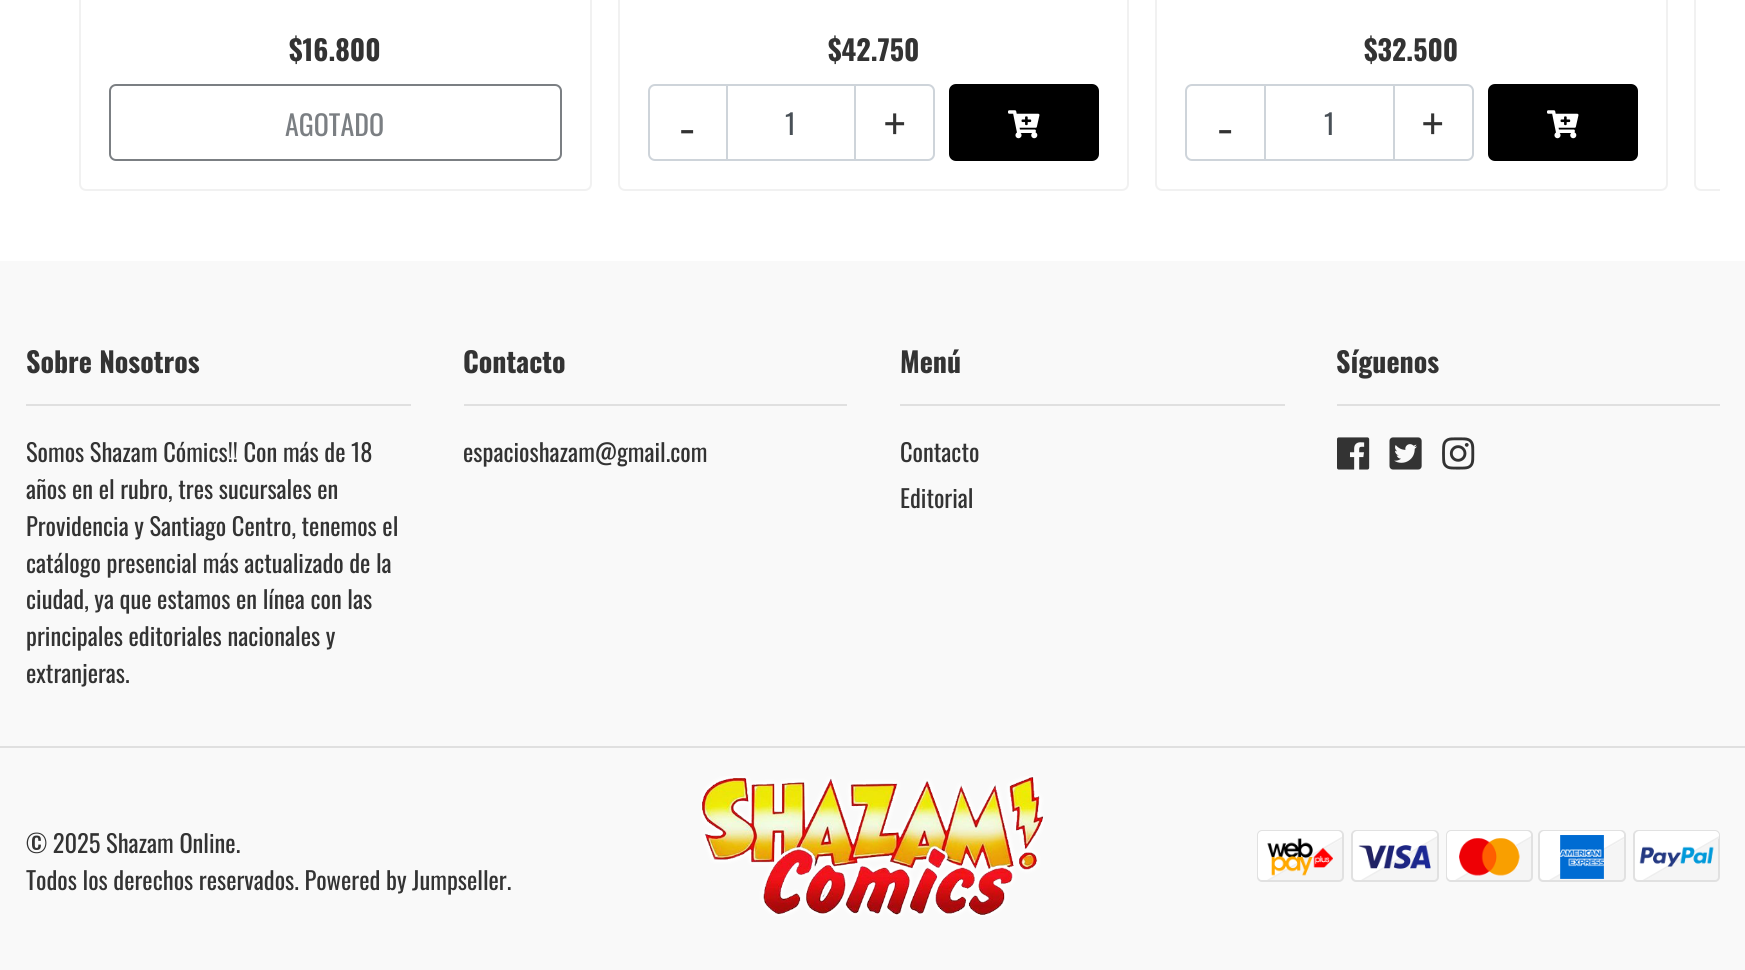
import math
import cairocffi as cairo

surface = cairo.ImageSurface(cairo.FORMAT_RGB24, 1745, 970)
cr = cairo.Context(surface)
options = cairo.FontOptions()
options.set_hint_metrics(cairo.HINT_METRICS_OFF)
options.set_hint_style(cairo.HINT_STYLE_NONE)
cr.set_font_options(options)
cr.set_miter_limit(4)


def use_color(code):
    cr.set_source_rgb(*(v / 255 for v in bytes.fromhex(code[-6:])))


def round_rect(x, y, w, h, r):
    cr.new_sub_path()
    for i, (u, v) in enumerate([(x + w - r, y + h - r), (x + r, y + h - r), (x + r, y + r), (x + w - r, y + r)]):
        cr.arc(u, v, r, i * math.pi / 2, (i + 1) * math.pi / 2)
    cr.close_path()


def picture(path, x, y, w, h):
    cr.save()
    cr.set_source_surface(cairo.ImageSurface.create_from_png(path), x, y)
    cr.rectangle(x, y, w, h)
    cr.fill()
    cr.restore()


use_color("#ffffff")
cr.paint()
round_rect(80, -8, 511, 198, 6)
use_color("#f1f1f1")
cr.stroke()
cr.select_font_face("Oswald", cairo.FONT_SLANT_NORMAL, cairo.FONT_WEIGHT_BOLD)
cr.set_font_size(28)
use_color("#333333")
cr.move_to(289, 61)
cr.show_text("$16.800")
round_rect(110, 85, 451, 75, 6)
use_color("#7b7f83")
cr.stroke()
cr.select_font_face("Oswald")
cr.move_to(285, 136)
cr.show_text("AGOTADO")
round_rect(619, -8, 509, 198, 6)
use_color("#f1f1f1")
cr.stroke()
cr.select_font_face("Oswald", cairo.FONT_SLANT_NORMAL, cairo.FONT_WEIGHT_BOLD)
use_color("#333333")
cr.move_to(828, 61)
cr.show_text("$42.750")
round_rect(649, 85, 285, 75, 6)
use_color("#ced4da")
cr.stroke()
cr.select_font_face("Oswald")
use_color("#495057")
cr.move_to(785, 135)
cr.show_text("1")
use_color("#ced4da")
cr.rectangle(726, 86, 2, 73)
cr.fill()
cr.select_font_face("Oswald Light")
cr.set_font_size(56)
use_color("#333333")
cr.move_to(679, 147)
cr.show_text("-")
use_color("#ced4da")
cr.rectangle(854, 86, 2, 73)
cr.fill()
use_color("#333333")
cr.move_to(884, 147)
cr.show_text("+")
use_color("#000000")
round_rect(949, 84, 150, 77, 7)
cr.fill()
picture("img1.png", 1008, 110, 32, 29)
round_rect(1156, -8, 511, 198, 6)
use_color("#f1f1f1")
cr.stroke()
cr.select_font_face("Oswald", cairo.FONT_SLANT_NORMAL, cairo.FONT_WEIGHT_BOLD)
cr.set_font_size(28)
use_color("#333333")
cr.move_to(1364, 61)
cr.show_text("$32.500")
round_rect(1186, 85, 287, 75, 6)
use_color("#ced4da")
cr.stroke()
cr.select_font_face("Oswald")
use_color("#495057")
cr.move_to(1324, 135)
cr.show_text("1")
use_color("#ced4da")
cr.rectangle(1264, 86, 2, 73)
cr.fill()
cr.select_font_face("Oswald Light")
cr.set_font_size(56)
use_color("#333333")
cr.move_to(1217, 147)
cr.show_text("-")
use_color("#ced4da")
cr.rectangle(1393, 86, 2, 73)
cr.fill()
use_color("#333333")
cr.move_to(1422, 147)
cr.show_text("+")
use_color("#000000")
round_rect(1488, 84, 150, 77, 7)
cr.fill()
picture("img1.png", 1547, 110, 32, 29)
cr.save()
cr.rectangle(26, 0, 1694, 219)
cr.clip()
round_rect(1695, -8, 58, 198, 6)
use_color("#f1f1f1")
cr.stroke()
cr.restore()
use_color("#f9f9f9")
cr.rectangle(0, 261, 1745, 709)
cr.fill()
use_color("#e0e0e0")
cr.rectangle(26, 404, 385, 2)
cr.fill()
cr.select_font_face("Oswald", cairo.FONT_SLANT_NORMAL, cairo.FONT_WEIGHT_BOLD)
cr.set_font_size(28)
use_color("#333333")
cr.move_to(26, 373)
cr.show_text("Sobre Nosotros")
cr.select_font_face("Oswald")
cr.set_font_size(24.5)
cr.move_to(26, 462)
cr.show_text("Somos Shazam Cómics!! Con más de 18")
cr.move_to(26, 499)
cr.show_text("años en el rubro, tres sucursales en")
cr.move_to(26, 536)
cr.show_text("Providencia y Santiago Centro, tenemos el")
cr.move_to(26, 573)
cr.show_text("catálogo presencial más actualizado de la")
cr.move_to(26, 609)
cr.show_text("ciudad, ya que estamos en línea con las")
cr.move_to(26, 646)
cr.show_text("principales editoriales nacionales y")
cr.move_to(26, 683)
cr.show_text("extranjeras.")
use_color("#e0e0e0")
cr.rectangle(464, 404, 383, 2)
cr.fill()
cr.select_font_face("Oswald", cairo.FONT_SLANT_NORMAL, cairo.FONT_WEIGHT_BOLD)
cr.set_font_size(28)
use_color("#333333")
cr.move_to(463, 373)
cr.show_text("Contacto")
cr.select_font_face("Oswald")
cr.set_font_size(24.5)
cr.move_to(463, 462)
cr.show_text("espacioshazam@gmail.com")
use_color("#e0e0e0")
cr.rectangle(900, 404, 385, 2)
cr.fill()
cr.select_font_face("Oswald", cairo.FONT_SLANT_NORMAL, cairo.FONT_WEIGHT_BOLD)
cr.set_font_size(28)
use_color("#333333")
cr.move_to(900, 373)
cr.show_text("Menú")
cr.select_font_face("Oswald")
cr.set_font_size(24.5)
cr.move_to(900, 462)
cr.show_text("Contacto")
cr.move_to(900, 508)
cr.show_text("Editorial")
use_color("#e0e0e0")
cr.rectangle(1337, 404, 383, 2)
cr.fill()
cr.select_font_face("Oswald", cairo.FONT_SLANT_NORMAL, cairo.FONT_WEIGHT_BOLD)
cr.set_font_size(28)
use_color("#333333")
cr.move_to(1336, 373)
cr.show_text("Síguenos")
picture("img2.png", 1337, 437, 33, 33)
picture("img3.png", 1389, 437, 33, 33)
picture("img4.png", 1442, 437, 33, 33)
use_color("#e0e0e0")
cr.rectangle(0, 746, 1745, 2)
cr.fill()
cr.select_font_face("Oswald")
cr.set_font_size(24.5)
use_color("#333333")
cr.move_to(26, 853)
cr.show_text("© 2025 Shazam Online.")
cr.move_to(26, 890)
cr.show_text("Todos los derechos reservados. Powered by Jumpseller.")
picture("img5.png", 701, 776, 343, 140)
use_color("#f5f5f5")
round_rect(1258, 831, 85, 50, 4)
cr.fill_preserve()
use_color("#e1e1e1")
cr.stroke()
use_color("#ffffff")
cr.new_path()
cr.move_to(1262, 831)
cr.line_to(1338, 831)
cr.curve_to(1340, 831, 1342, 833, 1342, 835)
cr.line_to(1342, 839)
cr.line_to(1270, 880)
cr.line_to(1262, 880)
cr.curve_to(1260, 880, 1258, 878, 1258, 876)
cr.line_to(1258, 835)
cr.curve_to(1258, 833, 1260, 831, 1262, 831)
cr.close_path()
cr.fill()
cr.save()
round_rect(1258, 831, 84, 49, 4)
cr.clip()
cr.new_path()
cr.move_to(1290.5, 667.5)
cr.line_to(1377, 817.5)
cr.line_to(1227, 904)
cr.line_to(1140.5, 754)
cr.close_path()
use_color("#eeeeee")
cr.set_line_width(1.7)
cr.stroke()
cr.restore()
picture("img6.png", 1267, 838, 66, 38)
use_color("#f5f5f5")
round_rect(1352, 831, 86, 50, 4)
cr.fill_preserve()
use_color("#e1e1e1")
cr.stroke()
use_color("#ffffff")
cr.new_path()
cr.move_to(1357, 831)
cr.line_to(1433, 831)
cr.curve_to(1435, 831, 1437, 833, 1437, 835)
cr.line_to(1437, 838)
cr.line_to(1364, 880)
cr.line_to(1357, 880)
cr.curve_to(1355, 880, 1353, 878, 1353, 876)
cr.line_to(1353, 835)
cr.curve_to(1353, 833, 1355, 831, 1357, 831)
cr.close_path()
cr.fill()
cr.save()
round_rect(1353, 831, 84, 49, 4)
cr.clip()
cr.new_path()
cr.move_to(1384.5, 667.5)
cr.line_to(1471, 817.5)
cr.line_to(1321, 904)
cr.line_to(1234.5, 754)
cr.close_path()
use_color("#eeeeee")
cr.set_line_width(1.7)
cr.stroke()
cr.restore()
picture("img7.png", 1358, 845, 73, 24)
use_color("#f5f5f5")
round_rect(1447, 831, 85, 50, 4)
cr.fill_preserve()
use_color("#e1e1e1")
cr.stroke()
use_color("#ffffff")
cr.new_path()
cr.move_to(1451, 831)
cr.line_to(1527, 831)
cr.curve_to(1529, 831, 1531, 833, 1531, 835)
cr.line_to(1531, 838)
cr.line_to(1458, 880)
cr.line_to(1451, 880)
cr.curve_to(1449, 880, 1447, 878, 1447, 876)
cr.line_to(1447, 835)
cr.curve_to(1447, 833, 1449, 831, 1451, 831)
cr.close_path()
cr.fill()
cr.save()
round_rect(1447, 831, 84, 49, 4)
cr.clip()
cr.new_path()
cr.move_to(1478.5, 667.5)
cr.line_to(1565, 817.5)
cr.line_to(1415, 904)
cr.line_to(1328.5, 754)
cr.close_path()
use_color("#eeeeee")
cr.set_line_width(1.7)
cr.stroke()
cr.restore()
picture("img8.png", 1459, 838, 61, 38)
use_color("#f5f5f5")
round_rect(1539, 831, 86, 50, 4)
cr.fill_preserve()
use_color("#e1e1e1")
cr.stroke()
use_color("#ffffff")
cr.new_path()
cr.move_to(1544, 831)
cr.line_to(1620, 831)
cr.curve_to(1622, 831, 1624, 833, 1624, 835)
cr.line_to(1624, 839)
cr.line_to(1552, 880)
cr.line_to(1544, 880)
cr.curve_to(1542, 880, 1540, 878, 1540, 876)
cr.line_to(1540, 835)
cr.curve_to(1540, 833, 1542, 831, 1544, 831)
cr.close_path()
cr.fill()
cr.save()
round_rect(1540, 831, 84, 49, 4)
cr.clip()
cr.new_path()
cr.move_to(1572, 667.5)
cr.line_to(1659, 817.5)
cr.line_to(1509, 904)
cr.line_to(1422, 754)
cr.close_path()
use_color("#eeeeee")
cr.set_line_width(1.7)
cr.stroke()
cr.restore()
picture("img9.png", 1560, 835, 44, 44)
use_color("#f5f5f5")
round_rect(1634, 831, 85, 50, 4)
cr.fill_preserve()
use_color("#e1e1e1")
cr.stroke()
use_color("#ffffff")
cr.new_path()
cr.move_to(1639, 831)
cr.line_to(1715, 831)
cr.curve_to(1717, 831, 1719, 833, 1719, 835)
cr.line_to(1719, 838)
cr.line_to(1646, 880)
cr.line_to(1639, 880)
cr.curve_to(1637, 880, 1635, 878, 1635, 876)
cr.line_to(1635, 835)
cr.curve_to(1635, 833, 1637, 831, 1639, 831)
cr.close_path()
cr.fill()
cr.save()
round_rect(1635, 831, 84, 49, 4)
cr.clip()
cr.new_path()
cr.move_to(1666, 667.5)
cr.line_to(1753, 817.5)
cr.line_to(1602.5, 904)
cr.line_to(1516, 754)
cr.close_path()
use_color("#eeeeee")
cr.set_line_width(1.7)
cr.stroke()
cr.restore()
picture("img10.png", 1639, 846, 75, 21)
surface.write_to_png("result.png")
